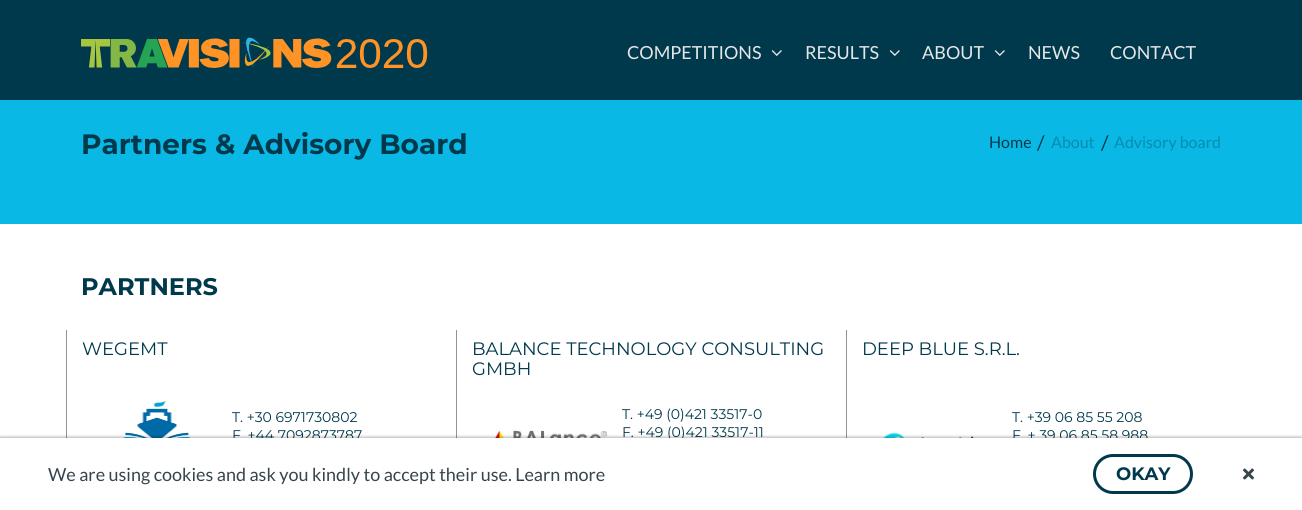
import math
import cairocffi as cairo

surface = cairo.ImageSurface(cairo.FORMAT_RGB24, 1302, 510)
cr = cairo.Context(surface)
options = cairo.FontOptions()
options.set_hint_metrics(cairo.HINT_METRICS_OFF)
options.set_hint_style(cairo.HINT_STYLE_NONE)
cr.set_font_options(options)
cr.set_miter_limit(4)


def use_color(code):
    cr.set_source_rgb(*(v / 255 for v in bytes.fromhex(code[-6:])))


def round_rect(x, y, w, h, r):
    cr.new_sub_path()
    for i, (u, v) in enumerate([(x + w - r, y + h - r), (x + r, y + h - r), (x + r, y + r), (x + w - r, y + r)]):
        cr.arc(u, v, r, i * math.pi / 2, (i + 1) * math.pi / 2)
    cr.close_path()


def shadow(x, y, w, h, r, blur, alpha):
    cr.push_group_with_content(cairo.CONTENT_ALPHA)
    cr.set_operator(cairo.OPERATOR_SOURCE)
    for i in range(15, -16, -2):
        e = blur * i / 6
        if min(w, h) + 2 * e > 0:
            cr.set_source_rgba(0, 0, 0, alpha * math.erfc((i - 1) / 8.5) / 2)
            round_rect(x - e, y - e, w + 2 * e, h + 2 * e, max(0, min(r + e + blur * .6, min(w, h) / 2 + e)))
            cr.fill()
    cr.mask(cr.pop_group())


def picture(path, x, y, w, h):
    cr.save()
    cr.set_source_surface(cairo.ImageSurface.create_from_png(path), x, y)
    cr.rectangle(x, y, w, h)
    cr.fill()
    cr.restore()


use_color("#09b8e4")
cr.paint()
use_color("#00394c")
cr.rectangle(0, 0, 1302, 100)
cr.fill()
picture("img1.png", 81, 37, 347, 31)
cr.select_font_face("Lato")
cr.set_font_size(18)
use_color("#e6e6e6")
cr.move_to(627, 59)
cr.show_text("COMPETITIONS")
picture("img2.png", 771, 50, 11, 6)
cr.move_to(805, 59)
cr.show_text("RESULTS")
picture("img2.png", 889, 50, 11, 6)
cr.move_to(922, 59)
cr.show_text("ABOUT")
picture("img2.png", 994, 50, 11, 6)
cr.move_to(1028, 59)
cr.show_text("NEWS")
cr.move_to(1110, 59)
cr.show_text("CONTACT")
cr.select_font_face("Montserrat", cairo.FONT_SLANT_NORMAL, cairo.FONT_WEIGHT_BOLD)
cr.set_font_size(28)
use_color("#00394c")
cr.move_to(81, 154)
cr.show_text("Partners & Advisory Board")
cr.select_font_face("Lato")
cr.set_font_size(16)
cr.move_to(989, 148)
cr.show_text("Home")
cr.set_font_size(20)
cr.move_to(1037, 150)
cr.show_text("/")
cr.set_font_size(16)
use_color("#068caf")
cr.move_to(1051, 148)
cr.show_text("About")
cr.set_font_size(20)
use_color("#00394c")
cr.move_to(1101, 150)
cr.show_text("/")
cr.set_font_size(16)
use_color("#068caf")
cr.move_to(1114, 148)
cr.show_text("Advisory board")
use_color("#ffffff")
cr.rectangle(0, 224, 1302, 214)
cr.fill()
cr.select_font_face("Montserrat", cairo.FONT_SLANT_NORMAL, cairo.FONT_WEIGHT_BOLD)
cr.set_font_size(24)
use_color("#00394c")
cr.move_to(81, 295)
cr.show_text("PARTNERS")
use_color("#929497")
cr.rectangle(66, 330, 1, 108)
cr.fill()
cr.select_font_face("Montserrat")
cr.set_font_size(18)
use_color("#00394c")
cr.move_to(82, 355)
cr.show_text("WEGEMT")
picture("img3.png", 123, 401, 68, 37)
cr.set_font_size(14)
cr.move_to(232, 422)
cr.show_text("T. +30 6971730802")
cr.move_to(232, 440)
cr.show_text("F. +44 7092873787")
use_color("#929497")
cr.rectangle(456, 330, 1, 108)
cr.fill()
cr.set_font_size(18)
use_color("#00394c")
cr.move_to(472, 355)
cr.show_text("BALANCE TECHNOLOGY CONSULTING")
cr.move_to(472, 375)
cr.show_text("GMBH")
picture("img4.png", 495, 430, 112, 8)
cr.set_font_size(14)
cr.move_to(622, 419)
cr.show_text("T. +49 (0)421 33517-0")
cr.move_to(622, 437)
cr.show_text("F. +49 (0)421 33517-11")
use_color("#929497")
cr.rectangle(846, 330, 1, 108)
cr.fill()
cr.set_font_size(18)
use_color("#00394c")
cr.move_to(862, 355)
cr.show_text("DEEP BLUE S.R.L.")
picture("img5.png", 883, 432, 91, 6)
cr.set_font_size(14)
cr.move_to(1012, 422)
cr.show_text("T. +39 06 85 55 208")
cr.move_to(1012, 440)
cr.show_text("F. + 39 06 85 58 988")
use_color("#000000")
shadow(0, 437, 1302, 72, 0, 1.5, 0.3)
use_color("#ffffff")
cr.rectangle(0, 438, 1302, 72)
cr.fill()
cr.select_font_face("Lato")
cr.set_font_size(18)
use_color("#35454d")
cr.move_to(48, 481)
cr.show_text("We are using cookies and ask you kindly to accept their use. Learn more")
round_rect(1094.5, 455.5, 97, 37, 18.5)
use_color("#00394c")
cr.set_line_width(3)
cr.stroke()
cr.select_font_face("Montserrat", cairo.FONT_SLANT_NORMAL, cairo.FONT_WEIGHT_BOLD)
cr.move_to(1116, 480)
cr.show_text("OKAY")
picture("img6.png", 1243, 468, 11, 12)
surface.write_to_png("result.png")
